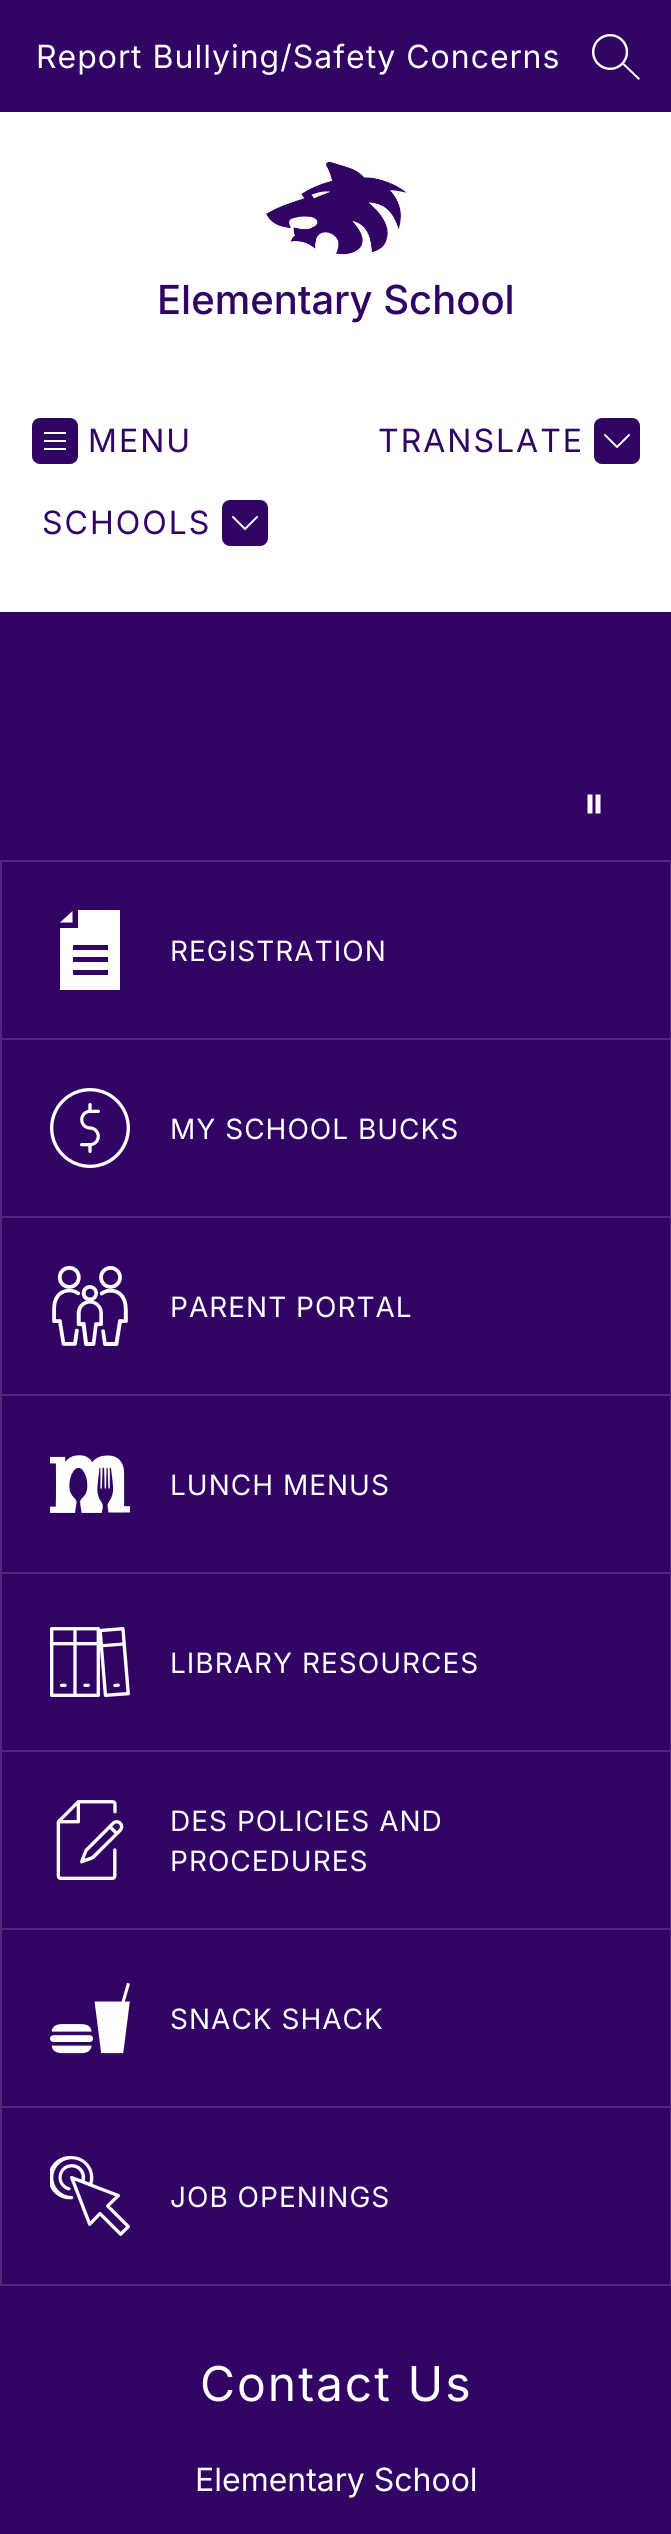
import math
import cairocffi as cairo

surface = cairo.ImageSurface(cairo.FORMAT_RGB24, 671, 2534)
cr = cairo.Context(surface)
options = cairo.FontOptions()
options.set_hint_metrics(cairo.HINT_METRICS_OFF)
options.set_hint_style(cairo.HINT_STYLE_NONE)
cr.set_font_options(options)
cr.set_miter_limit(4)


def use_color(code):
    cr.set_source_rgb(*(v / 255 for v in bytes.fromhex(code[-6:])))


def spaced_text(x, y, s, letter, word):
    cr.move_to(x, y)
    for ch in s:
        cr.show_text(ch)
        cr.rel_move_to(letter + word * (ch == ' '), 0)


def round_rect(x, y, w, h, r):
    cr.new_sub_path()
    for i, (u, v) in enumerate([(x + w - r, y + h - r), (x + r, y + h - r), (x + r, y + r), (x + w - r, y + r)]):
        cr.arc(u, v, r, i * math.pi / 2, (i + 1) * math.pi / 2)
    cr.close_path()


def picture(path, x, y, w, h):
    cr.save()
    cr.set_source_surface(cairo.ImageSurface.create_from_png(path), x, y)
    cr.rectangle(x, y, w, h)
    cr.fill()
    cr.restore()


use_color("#ffffff")
cr.paint()
use_color("#310365")
cr.rectangle(0, 0, 671, 112)
cr.fill()
cr.select_font_face("Inter")
cr.set_font_size(32)
use_color("#ffffff")
spaced_text(36, 68, "Report Bullying/Safety Concerns", 1, 0)
picture("img1.png", 592, 34, 48, 46)
picture("img2.png", 266, 161, 140, 94)
cr.select_font_face("Inter Medium")
cr.set_font_size(40)
use_color("#310365")
cr.move_to(157, 314)
cr.show_text("Elementary School")
round_rect(32, 418, 46, 46, 8)
cr.fill()
use_color("#ffffff")
cr.set_fill_rule(cairo.FILL_RULE_EVEN_ODD)
cr.new_path()
cr.move_to(44, 432)
cr.line_to(66, 432)
cr.line_to(66, 434)
cr.line_to(44, 434)
cr.close_path()
cr.move_to(44, 440)
cr.line_to(66, 440)
cr.line_to(66, 442)
cr.line_to(44, 442)
cr.close_path()
cr.move_to(66, 448)
cr.line_to(44, 448)
cr.line_to(44, 450)
cr.line_to(66, 450)
cr.close_path()
cr.fill()
cr.select_font_face("Inter")
cr.set_font_size(32)
use_color("#310365")
spaced_text(88, 452, "MENU", 2, 0)
spaced_text(42, 534, "SCHOOLS", 2, 0)
picture("img3.png", 222, 500, 46, 46)
spaced_text(378, 452, "TRANSLATE", 2, 0)
picture("img3.png", 594, 418, 46, 46)
cr.rectangle(0, 612, 671, 248)
cr.fill()
use_color("#ffffff")
cr.new_path()
cr.move_to(592.5, 794.5)
cr.line_to(587.5, 794.5)
cr.line_to(587.5, 813.5)
cr.line_to(592.5, 813.5)
cr.close_path()
cr.move_to(600.5, 794.5)
cr.line_to(595.5, 794.5)
cr.line_to(595.5, 813.5)
cr.line_to(600.5, 813.5)
cr.close_path()
cr.fill()
use_color("#310365")
cr.rectangle(1, 861, 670, 178)
cr.fill_preserve()
use_color("#50297c")
cr.stroke()
use_color("#ffffff")
cr.set_fill_rule(cairo.FILL_RULE_WINDING)
cr.new_path()
cr.move_to(72.5, 911)
cr.line_to(60, 922.5)
cr.line_to(72.5, 922.5)
cr.close_path()
cr.fill()
cr.new_path()
cr.move_to(78, 910)
cr.line_to(78, 928)
cr.line_to(60, 928)
cr.line_to(60, 990)
cr.line_to(120, 990)
cr.line_to(120, 910)
cr.close_path()
cr.move_to(108, 975)
cr.line_to(73, 975)
cr.line_to(73, 970)
cr.line_to(108, 970)
cr.close_path()
cr.move_to(108, 962)
cr.line_to(73, 962)
cr.line_to(73, 957)
cr.line_to(108, 957)
cr.close_path()
cr.move_to(108, 950)
cr.line_to(73, 950)
cr.line_to(73, 945)
cr.line_to(108, 945)
cr.close_path()
cr.fill()
cr.set_font_size(28)
spaced_text(170, 961, "REGISTRATION", 1, 0)
use_color("#310365")
cr.rectangle(0, 1040, 671, 1246)
cr.fill()
use_color("#50297c")
cr.new_path()
cr.move_to(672, 1040)
cr.line_to(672, 1218)
cr.line_to(670, 1216)
cr.line_to(670, 1040)
cr.close_path()
cr.fill()
cr.set_source_rgba(1, 1, 1, 0.15)
cr.new_path()
cr.move_to(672, 1218)
cr.line_to(0, 1218)
cr.line_to(2, 1216)
cr.line_to(670, 1216)
cr.close_path()
cr.fill()
cr.new_path()
cr.move_to(0, 1218)
cr.line_to(0, 1040)
cr.line_to(2, 1040)
cr.line_to(2, 1216)
cr.close_path()
cr.fill()
picture("img4.png", 50, 1088, 80, 80)
use_color("#ffffff")
spaced_text(170, 1139, "MY SCHOOL BUCKS", 1, 0)
use_color("#50297c")
cr.new_path()
cr.move_to(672, 1218)
cr.line_to(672, 1396)
cr.line_to(670, 1394)
cr.line_to(670, 1218)
cr.close_path()
cr.fill()
cr.set_source_rgba(1, 1, 1, 0.15)
cr.new_path()
cr.move_to(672, 1396)
cr.line_to(0, 1396)
cr.line_to(2, 1394)
cr.line_to(670, 1394)
cr.close_path()
cr.fill()
cr.new_path()
cr.move_to(0, 1396)
cr.line_to(0, 1218)
cr.line_to(2, 1218)
cr.line_to(2, 1394)
cr.close_path()
cr.fill()
picture("img5.png", 52, 1266, 76, 80)
use_color("#ffffff")
spaced_text(170, 1317, "PARENT PORTAL", 1, 0)
use_color("#50297c")
cr.new_path()
cr.move_to(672, 1396)
cr.line_to(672, 1574)
cr.line_to(670, 1572)
cr.line_to(670, 1396)
cr.close_path()
cr.fill()
cr.set_source_rgba(1, 1, 1, 0.15)
cr.new_path()
cr.move_to(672, 1574)
cr.line_to(0, 1574)
cr.line_to(2, 1572)
cr.line_to(670, 1572)
cr.close_path()
cr.fill()
cr.new_path()
cr.move_to(0, 1574)
cr.line_to(0, 1396)
cr.line_to(2, 1396)
cr.line_to(2, 1572)
cr.close_path()
cr.fill()
picture("img6.png", 50, 1455, 80, 58)
use_color("#ffffff")
spaced_text(170, 1495, "LUNCH MENUS", 1, 0)
use_color("#50297c")
cr.new_path()
cr.move_to(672, 1574)
cr.line_to(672, 1752)
cr.line_to(670, 1750)
cr.line_to(670, 1574)
cr.close_path()
cr.fill()
cr.set_source_rgba(1, 1, 1, 0.15)
cr.new_path()
cr.move_to(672, 1752)
cr.line_to(0, 1752)
cr.line_to(2, 1750)
cr.line_to(670, 1750)
cr.close_path()
cr.fill()
cr.new_path()
cr.move_to(0, 1752)
cr.line_to(0, 1574)
cr.line_to(2, 1574)
cr.line_to(2, 1750)
cr.close_path()
cr.fill()
picture("img7.png", 50, 1627, 80, 70)
use_color("#ffffff")
spaced_text(170, 1673, "LIBRARY RESOURCES", 1, 0)
use_color("#50297c")
cr.new_path()
cr.move_to(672, 1752)
cr.line_to(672, 1930)
cr.line_to(670, 1928)
cr.line_to(670, 1752)
cr.close_path()
cr.fill()
cr.set_source_rgba(1, 1, 1, 0.15)
cr.new_path()
cr.move_to(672, 1930)
cr.line_to(0, 1930)
cr.line_to(2, 1928)
cr.line_to(670, 1928)
cr.close_path()
cr.fill()
cr.new_path()
cr.move_to(0, 1930)
cr.line_to(0, 1752)
cr.line_to(2, 1752)
cr.line_to(2, 1928)
cr.close_path()
cr.fill()
picture("img8.png", 56, 1800, 68, 80)
use_color("#ffffff")
spaced_text(170, 1831, "DES POLICIES AND", 1, 0)
spaced_text(170, 1871, "PROCEDURES", 1, 0)
use_color("#50297c")
cr.new_path()
cr.move_to(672, 1930)
cr.line_to(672, 2108)
cr.line_to(670, 2106)
cr.line_to(670, 1930)
cr.close_path()
cr.fill()
cr.set_source_rgba(1, 1, 1, 0.15)
cr.new_path()
cr.move_to(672, 2108)
cr.line_to(0, 2108)
cr.line_to(2, 2106)
cr.line_to(670, 2106)
cr.close_path()
cr.fill()
cr.new_path()
cr.move_to(0, 2108)
cr.line_to(0, 1930)
cr.line_to(2, 1930)
cr.line_to(2, 2106)
cr.close_path()
cr.fill()
picture("img9.png", 50, 1982, 80, 72)
use_color("#ffffff")
spaced_text(170, 2029, "SNACK SHACK", 1, 0)
use_color("#50297c")
cr.new_path()
cr.move_to(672, 2108)
cr.line_to(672, 2286)
cr.line_to(670, 2284)
cr.line_to(670, 2108)
cr.close_path()
cr.fill()
cr.set_source_rgba(1, 1, 1, 0.15)
cr.new_path()
cr.move_to(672, 2286)
cr.line_to(0, 2286)
cr.line_to(2, 2284)
cr.line_to(670, 2284)
cr.close_path()
cr.fill()
cr.new_path()
cr.move_to(0, 2286)
cr.line_to(0, 2108)
cr.line_to(2, 2108)
cr.line_to(2, 2284)
cr.close_path()
cr.fill()
picture("img10.png", 50, 2156, 80, 80)
use_color("#ffffff")
spaced_text(170, 2207, "JOB OPENINGS", 1, 0)
use_color("#310365")
cr.rectangle(0, 2286, 671, 248)
cr.fill()
cr.set_font_size(48)
use_color("#ffffff")
spaced_text(200, 2401, "Contact Us", 2, 0)
cr.set_font_size(32)
cr.move_to(195, 2491)
cr.show_text("Elementary School")
surface.write_to_png("result.png")
